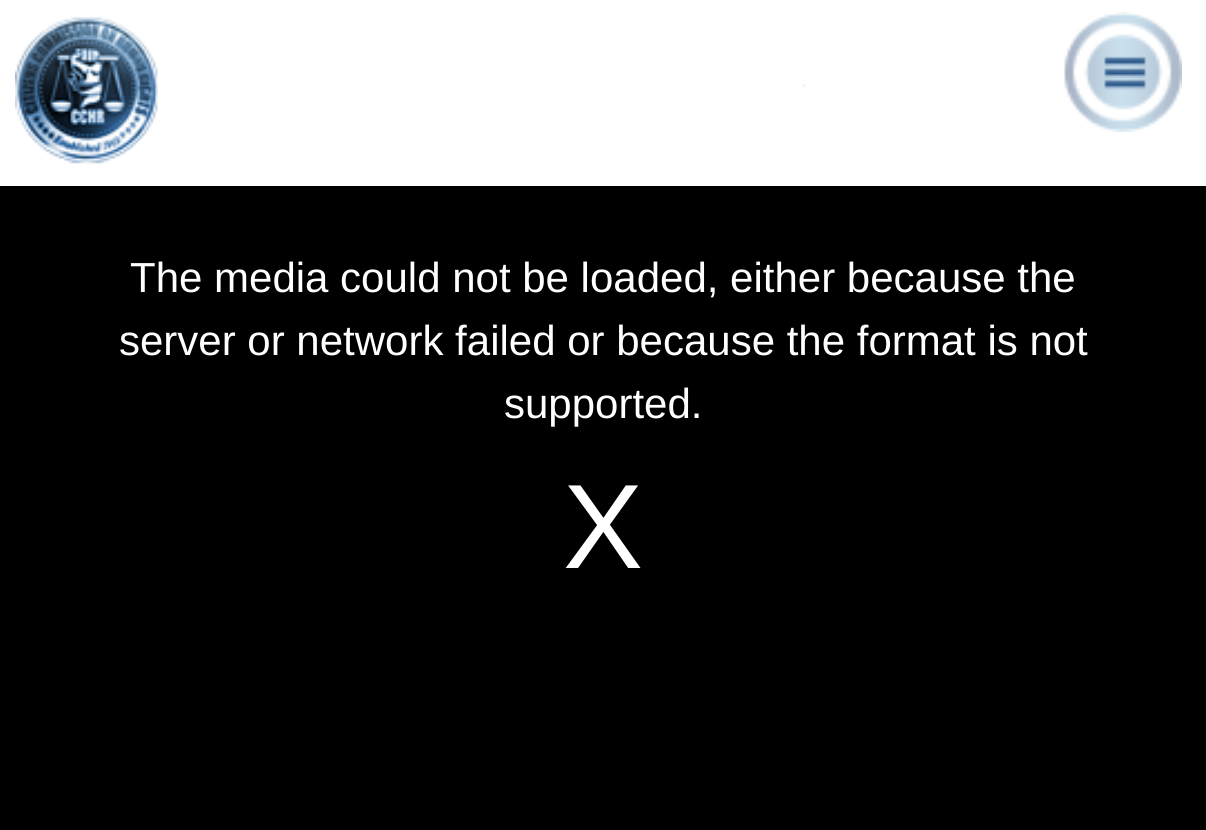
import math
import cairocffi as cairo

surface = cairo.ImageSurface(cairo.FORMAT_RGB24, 1206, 830)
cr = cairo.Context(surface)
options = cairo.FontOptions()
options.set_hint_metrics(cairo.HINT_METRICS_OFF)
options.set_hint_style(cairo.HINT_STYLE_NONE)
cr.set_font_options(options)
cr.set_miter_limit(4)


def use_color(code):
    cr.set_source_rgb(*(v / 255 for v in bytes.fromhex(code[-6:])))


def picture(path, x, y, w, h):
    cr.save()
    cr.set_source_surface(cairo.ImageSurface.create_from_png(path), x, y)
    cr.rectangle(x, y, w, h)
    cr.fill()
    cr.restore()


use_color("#ffffff")
cr.paint()
picture("img1.png", 15, 16, 791, 148)
picture("img2.png", 1064, 12, 118, 120)
use_color("#000000")
cr.rectangle(0, 186, 1206, 644)
cr.fill()
cr.select_font_face("Liberation Sans")
cr.set_font_size(42)
use_color("#ffffff")
cr.move_to(130, 292)
cr.show_text("The media could not be loaded, either because the")
cr.move_to(119, 355)
cr.show_text("server or network failed or because the format is not")
cr.move_to(504, 418)
cr.show_text("supported.")
cr.set_font_size(120)
cr.move_to(563, 568)
cr.show_text("X")
surface.write_to_png("result.png")
